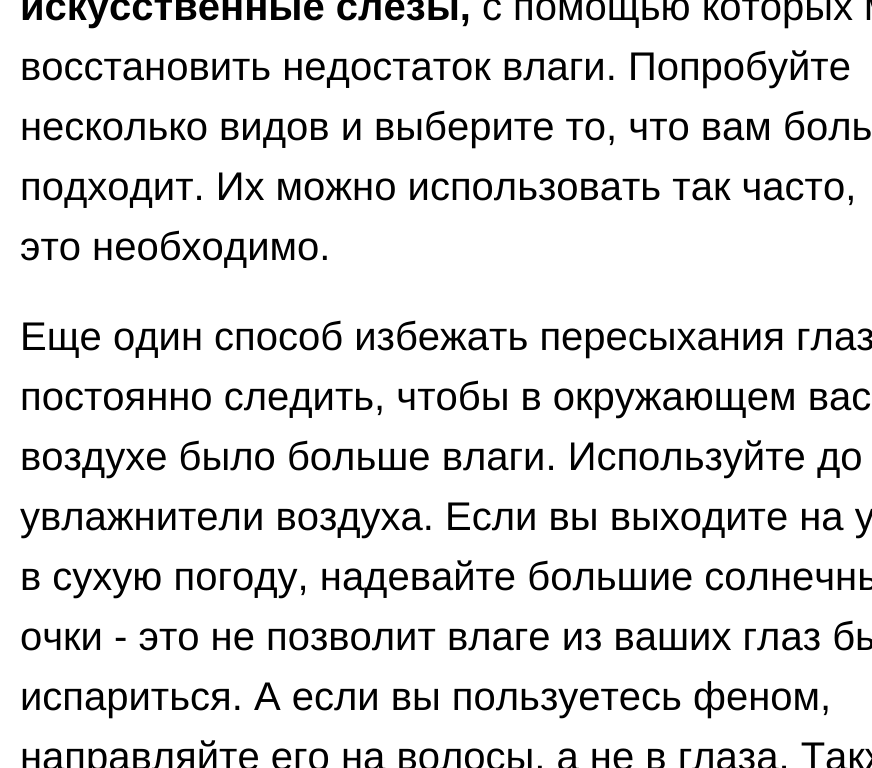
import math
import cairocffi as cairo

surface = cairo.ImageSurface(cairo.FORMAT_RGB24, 872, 768)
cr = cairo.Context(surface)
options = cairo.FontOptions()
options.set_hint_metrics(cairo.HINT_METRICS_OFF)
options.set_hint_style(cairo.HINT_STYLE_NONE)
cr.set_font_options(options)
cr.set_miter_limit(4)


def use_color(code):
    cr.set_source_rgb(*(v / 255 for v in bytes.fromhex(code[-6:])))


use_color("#ffffff")
cr.paint()
cr.select_font_face("Liberation Sans", cairo.FONT_SLANT_NORMAL, cairo.FONT_WEIGHT_BOLD)
cr.set_font_size(40)
use_color("#000000")
cr.move_to(20, 20)
cr.show_text("искусственные слезы,")
cr.select_font_face("Liberation Sans")
cr.move_to(482, 20)
cr.show_text("с помощью которых м")
cr.move_to(20, 80)
cr.show_text("восстановить недостаток влаги. Попробуйте")
cr.move_to(20, 140)
cr.show_text("несколько видов и выберите то, что вам боль")
cr.move_to(20, 200)
cr.show_text("подходит. Их можно использовать так часто,")
cr.move_to(20, 260)
cr.show_text("это необходимо.")
cr.move_to(20, 350)
cr.show_text("Еще один способ избежать пересыхания глаз")
cr.move_to(20, 410)
cr.show_text("постоянно следить, чтобы в окружающем вас")
cr.move_to(20, 470)
cr.show_text("воздухе было больше влаги. Используйте до")
cr.move_to(20, 530)
cr.show_text("увлажнители воздуха. Если вы выходите на у")
cr.move_to(20, 590)
cr.show_text("в сухую погоду, надевайте большие солнечны")
cr.move_to(20, 650)
cr.show_text("очки - это не позволит влаге из ваших глаз бы")
cr.move_to(20, 710)
cr.show_text("испариться. А если вы пользуетесь феном,")
cr.move_to(20, 770)
cr.show_text("направляйте его на волосы, а не в глаза. Такж")
surface.write_to_png("result.png")
